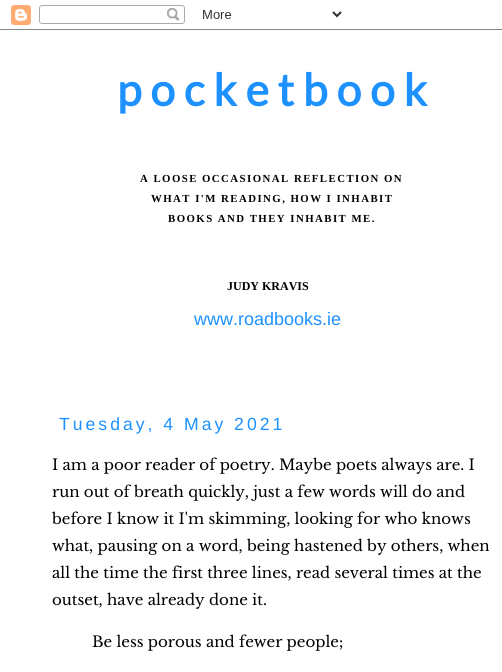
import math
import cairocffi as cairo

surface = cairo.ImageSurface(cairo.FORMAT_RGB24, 502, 672)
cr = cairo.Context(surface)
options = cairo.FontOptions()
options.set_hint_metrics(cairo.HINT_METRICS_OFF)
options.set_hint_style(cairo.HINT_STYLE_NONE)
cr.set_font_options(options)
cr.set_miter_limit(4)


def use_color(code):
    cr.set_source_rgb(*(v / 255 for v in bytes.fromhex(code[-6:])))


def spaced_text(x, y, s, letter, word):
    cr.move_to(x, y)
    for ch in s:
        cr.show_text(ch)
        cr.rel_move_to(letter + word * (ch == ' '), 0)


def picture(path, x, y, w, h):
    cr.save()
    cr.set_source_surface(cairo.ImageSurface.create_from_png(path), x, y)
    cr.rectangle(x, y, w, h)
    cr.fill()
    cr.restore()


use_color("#ffffff")
cr.paint()
picture("img1.png", 0, 5, 502, 25)
cr.select_font_face("Lato", cairo.FONT_SLANT_NORMAL, cairo.FONT_WEIGHT_BOLD)
cr.set_font_size(44.5)
use_color("#1c91ff")
spaced_text(117, 106, "pocketbook", 8.75, 0)
cr.select_font_face("Liberation Serif", cairo.FONT_SLANT_NORMAL, cairo.FONT_WEIGHT_BOLD)
cr.set_font_size(10.8)
use_color("#000000")
spaced_text(140, 182, "A LOOSE OCCASIONAL REFLECTION ON", 1.45, 0)
spaced_text(151, 202, "WHAT I'M READING, HOW I INHABIT", 1.45, 0)
spaced_text(168, 222, "BOOKS AND THEY INHABIT ME.", 1.45, 0)
cr.set_font_size(12)
cr.move_to(227, 290)
cr.show_text("JUDY KRAVIS")
cr.select_font_face("Liberation Sans")
cr.set_font_size(18)
use_color("#1c91ff")
cr.move_to(194, 325)
cr.show_text("www.roadbooks.ie")
cr.set_font_size(17.6)
spaced_text(59, 430, "Tuesday, 4 May 2021", 3, 0)
cr.select_font_face("Libre Baskerville")
cr.set_font_size(15)
use_color("#000000")
cr.move_to(52, 470)
cr.show_text("I am a poor reader of poetry. Maybe poets always are. I")
cr.move_to(52, 497)
cr.show_text("run out of breath quickly, just a few words will do and")
cr.move_to(52, 524)
cr.show_text("before I know it I'm skimming, looking for who knows")
cr.move_to(52, 551)
cr.show_text("what, pausing on a word, being hastened by others, when")
cr.move_to(52, 578)
cr.show_text("all the time the first three lines, read several times at the")
cr.move_to(52, 605)
cr.show_text("outset, have already done it.")
cr.move_to(92, 647)
cr.show_text("Be less porous and fewer people;")
surface.write_to_png("result.png")
